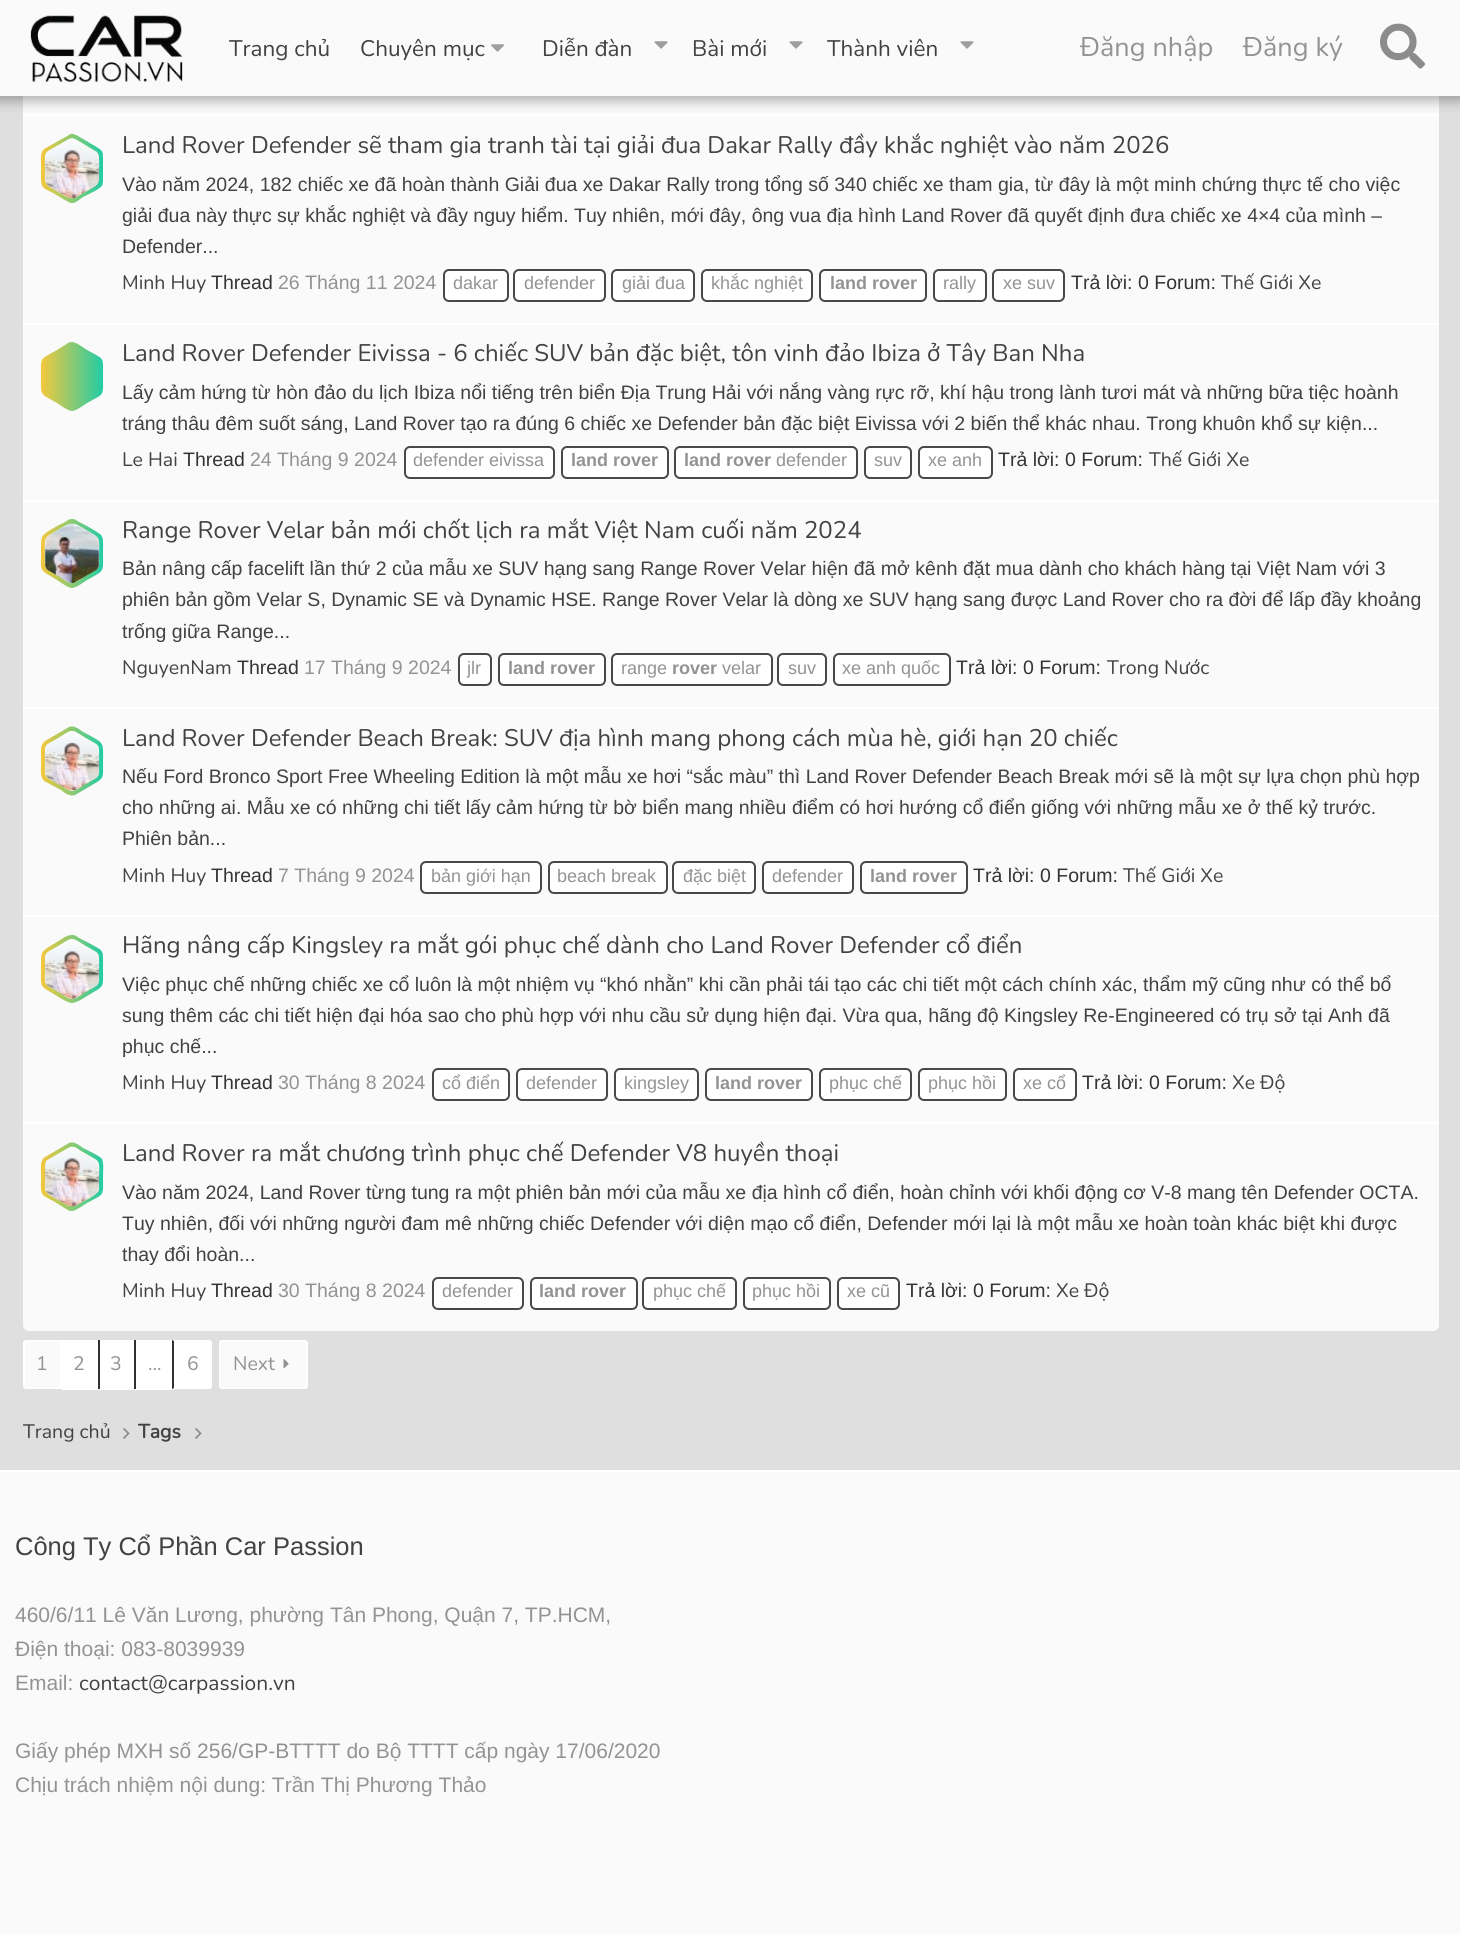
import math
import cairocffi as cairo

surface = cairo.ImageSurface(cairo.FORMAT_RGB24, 1460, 1934)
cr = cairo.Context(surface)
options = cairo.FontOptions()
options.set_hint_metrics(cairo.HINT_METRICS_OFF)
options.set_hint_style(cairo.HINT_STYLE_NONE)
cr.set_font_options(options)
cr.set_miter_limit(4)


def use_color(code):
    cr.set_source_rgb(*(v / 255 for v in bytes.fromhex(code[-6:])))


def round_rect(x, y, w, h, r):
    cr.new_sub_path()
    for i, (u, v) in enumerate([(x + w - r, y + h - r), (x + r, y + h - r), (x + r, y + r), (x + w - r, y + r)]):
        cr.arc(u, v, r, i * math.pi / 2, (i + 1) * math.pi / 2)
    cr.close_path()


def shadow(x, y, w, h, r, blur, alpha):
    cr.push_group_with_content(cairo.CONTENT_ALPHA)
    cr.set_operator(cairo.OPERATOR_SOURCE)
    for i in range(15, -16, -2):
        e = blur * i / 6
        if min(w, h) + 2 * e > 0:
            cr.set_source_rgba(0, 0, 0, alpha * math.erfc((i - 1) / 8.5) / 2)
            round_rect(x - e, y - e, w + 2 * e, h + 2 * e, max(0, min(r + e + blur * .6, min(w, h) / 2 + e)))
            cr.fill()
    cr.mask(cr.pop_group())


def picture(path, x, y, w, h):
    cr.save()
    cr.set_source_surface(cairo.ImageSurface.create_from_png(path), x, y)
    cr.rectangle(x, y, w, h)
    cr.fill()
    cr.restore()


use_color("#fafafa")
cr.paint()
use_color("#dfdfdf")
cr.rectangle(0, 96, 1460, 1374)
cr.fill()
use_color("#fafafa")
round_rect(23, -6, 1416, 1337, 6)
cr.fill()
use_color("#ffffff")
cr.rectangle(23, 114, 1416, 2)
cr.fill()
use_color("#000000")
shadow(-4, -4, 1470, 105, 0, 6, 0.3)
use_color("#fafafa")
cr.rectangle(0, 0, 1460, 96)
cr.fill()
picture("img1.png", 30, 15, 153, 68)
cr.select_font_face("Nunito ExtraLight")
cr.set_font_size(22.5)
use_color("#424242")
cr.move_to(229, 56)
cr.show_text("Trang chủ")
cr.move_to(360, 56)
cr.show_text("Chuyên mục")
picture("img2.png", 491, 44, 13, 8)
cr.move_to(542, 56)
cr.show_text("Diễn đàn")
picture("img3.png", 654, 41, 14, 8)
cr.move_to(692, 56)
cr.show_text("Bài mới")
picture("img3.png", 789, 41, 14, 8)
cr.move_to(827, 56)
cr.show_text("Thành viên")
picture("img3.png", 960, 41, 14, 8)
cr.set_font_size(27)
use_color("#939394")
cr.move_to(1080, 56)
cr.show_text("Đăng nhập")
cr.move_to(1243, 56)
cr.show_text("Đăng ký")
picture("img4.png", 1380, 23, 45, 46)
gradient = cairo.LinearGradient(38, 168, 107, 168)
gradient.add_color_stop_rgba(0, 1, 0.784, 0.216, 1)
gradient.add_color_stop_rgba(1, 0.078, 0.8, 0.678, 1)
cr.set_source(gradient)
cr.new_path()
cr.move_to(69, 135)
cr.line_to(44, 149)
cr.curve_to(40, 153, 41, 159, 41, 164)
cr.line_to(41, 178)
cr.curve_to(41, 188, 43, 188, 53, 193)
cr.curve_to(57, 195, 67, 202, 71, 203)
cr.curve_to(75, 204, 80, 199, 83, 197)
cr.line_to(95, 191)
cr.curve_to(103, 186, 103, 186, 103, 178)
cr.line_to(103, 159)
cr.curve_to(103, 151, 103, 151, 95, 146)
cr.line_to(83, 139)
cr.curve_to(79, 137, 75, 133, 70, 134)
cr.close_path()
cr.fill()
use_color("#ffffff")
cr.new_path()
cr.move_to(69, 139)
cr.curve_to(74, 137, 78, 141, 82, 143)
cr.line_to(97, 153)
cr.curve_to(100, 156, 99, 165, 99, 168)
cr.curve_to(99, 186, 100, 183, 85, 192)
cr.curve_to(69, 201, 73, 200, 55, 190)
cr.curve_to(47, 185, 45, 185, 45, 176)
cr.line_to(45, 164)
cr.curve_to(45, 160, 44, 154, 48, 151)
cr.close_path()
cr.fill()
picture("img5.png", 45, 138, 54, 60)
cr.set_font_size(24)
use_color("#424242")
cr.move_to(122, 153)
cr.show_text("Land Rover Defender sẽ tham gia tranh tài tại giải đua Dakar Rally đầy khắc nghiệt vào năm 2026")
cr.select_font_face("Liberation Sans")
cr.set_font_size(19.5)
cr.move_to(122, 191)
cr.show_text("Vào năm 2024, 182 chiếc xe đã hoàn thành Giải đua xe Dakar Rally trong tổng số 340 chiếc xe tham gia, từ đây là một minh chứng thực tế cho việc")
cr.move_to(122, 222)
cr.show_text("giải đua này thực sự khắc nghiệt và đầy nguy hiểm. Tuy nhiên, mới đây, ông vua địa hình Land Rover đã quyết định đưa chiếc xe 4×4 của mình –")
cr.move_to(122, 253)
cr.show_text("Defender...")
cr.select_font_face("Nunito ExtraLight")
cr.move_to(122, 289)
cr.show_text("Minh Huy")
cr.select_font_face("Liberation Sans")
use_color("#343434")
cr.move_to(211, 289)
cr.show_text("Thread")
use_color("#939394")
cr.move_to(278, 289)
cr.show_text("26 Tháng 11 2024")
use_color("#ffffff")
round_rect(444, 270, 64, 31, 5)
cr.fill_preserve()
use_color("#494949")
cr.stroke()
cr.set_font_size(18)
use_color("#939394")
cr.move_to(453, 289)
cr.show_text("dakar")
use_color("#ffffff")
round_rect(514, 270, 91, 31, 5)
cr.fill_preserve()
use_color("#494949")
cr.stroke()
use_color("#939394")
cr.move_to(524, 289)
cr.show_text("defender")
use_color("#ffffff")
round_rect(612, 270, 82, 31, 5)
cr.fill_preserve()
use_color("#494949")
cr.stroke()
use_color("#939394")
cr.move_to(622, 289)
cr.show_text("giải đua")
use_color("#ffffff")
round_rect(702, 270, 110, 31, 5)
cr.fill_preserve()
use_color("#494949")
cr.stroke()
use_color("#939394")
cr.move_to(711, 289)
cr.show_text("khắc nghiệt")
use_color("#ffffff")
round_rect(820, 270, 106, 31, 5)
cr.fill_preserve()
use_color("#494949")
cr.stroke()
cr.select_font_face("Liberation Sans", cairo.FONT_SLANT_NORMAL, cairo.FONT_WEIGHT_BOLD)
use_color("#939394")
cr.move_to(830, 289)
cr.show_text("land rover")
use_color("#ffffff")
round_rect(934, 270, 52, 31, 5)
cr.fill_preserve()
use_color("#494949")
cr.stroke()
cr.select_font_face("Liberation Sans")
use_color("#939394")
cr.move_to(943, 289)
cr.show_text("rally")
use_color("#ffffff")
round_rect(993, 270, 71, 31, 5)
cr.fill_preserve()
use_color("#494949")
cr.stroke()
use_color("#939394")
cr.move_to(1003, 289)
cr.show_text("xe suv")
cr.set_font_size(19.5)
use_color("#343434")
cr.move_to(1071, 289)
cr.show_text("Trả lời: 0 Forum:")
cr.select_font_face("Nunito ExtraLight")
use_color("#424242")
cr.move_to(1221, 289)
cr.show_text("Thế Giới Xe")
use_color("#ffffff")
cr.rectangle(23, 323, 1416, 2)
cr.fill()
gradient = cairo.LinearGradient(38, 377, 107, 377)
gradient.add_color_stop_rgba(0, 1, 0.784, 0.216, 1)
gradient.add_color_stop_rgba(1, 0.078, 0.8, 0.678, 1)
cr.set_source(gradient)
cr.new_path()
cr.move_to(72, 342)
cr.curve_to(69, 342, 68, 343, 65, 345)
cr.line_to(57, 350)
cr.curve_to(39, 360, 41, 357, 41, 376)
cr.curve_to(41, 396, 39, 393, 57, 403)
cr.curve_to(60, 405, 68, 411, 72, 411)
cr.curve_to(76, 411, 84, 405, 87, 403)
cr.curve_to(105, 393, 103, 397, 103, 376)
cr.curve_to(103, 356, 105, 360, 87, 350)
cr.curve_to(84, 348, 76, 342, 72, 342)
cr.close_path()
cr.fill()
cr.set_font_size(24)
use_color("#424242")
cr.move_to(122, 361)
cr.show_text("Land Rover Defender Eivissa - 6 chiếc SUV bản đặc biệt, tôn vinh đảo Ibiza ở Tây Ban Nha")
cr.select_font_face("Liberation Sans")
cr.set_font_size(19.5)
cr.move_to(122, 399)
cr.show_text("Lấy cảm hứng từ hòn đảo du lịch Ibiza nổi tiếng trên biển Địa Trung Hải với nắng vàng rực rỡ, khí hậu trong lành tươi mát và những bữa tiệc hoành")
cr.move_to(122, 430)
cr.show_text("tráng thâu đêm suốt sáng, Land Rover tạo ra đúng 6 chiếc xe Defender bản đặc biệt Eivissa với 2 biến thể khác nhau. Trong khuôn khổ sự kiện...")
cr.select_font_face("Nunito ExtraLight")
cr.move_to(122, 466)
cr.show_text("Le Hai")
cr.select_font_face("Liberation Sans")
use_color("#343434")
cr.move_to(183, 466)
cr.show_text("Thread")
use_color("#939394")
cr.move_to(250, 466)
cr.show_text("24 Tháng 9 2024")
use_color("#ffffff")
round_rect(405, 447, 149, 31, 5)
cr.fill_preserve()
use_color("#494949")
cr.stroke()
cr.set_font_size(18)
use_color("#939394")
cr.move_to(413, 466)
cr.show_text("defender eivissa")
use_color("#ffffff")
round_rect(562, 447, 106, 31, 5)
cr.fill_preserve()
use_color("#494949")
cr.stroke()
cr.select_font_face("Liberation Sans", cairo.FONT_SLANT_NORMAL, cairo.FONT_WEIGHT_BOLD)
use_color("#939394")
cr.move_to(571, 466)
cr.show_text("land rover")
use_color("#ffffff")
round_rect(675, 447, 182, 31, 5)
cr.fill_preserve()
use_color("#494949")
cr.stroke()
use_color("#939394")
cr.move_to(684, 466)
cr.show_text("land rover")
cr.select_font_face("Liberation Sans")
cr.move_to(776, 466)
cr.show_text("defender")
use_color("#ffffff")
round_rect(865, 447, 46, 31, 5)
cr.fill_preserve()
use_color("#494949")
cr.stroke()
use_color("#939394")
cr.move_to(874, 466)
cr.show_text("suv")
use_color("#ffffff")
round_rect(919, 447, 73, 31, 5)
cr.fill_preserve()
use_color("#494949")
cr.stroke()
use_color("#939394")
cr.move_to(928, 466)
cr.show_text("xe anh")
cr.set_font_size(19.5)
use_color("#343434")
cr.move_to(998, 466)
cr.show_text("Trả lời: 0 Forum:")
cr.select_font_face("Nunito ExtraLight")
use_color("#424242")
cr.move_to(1149, 466)
cr.show_text("Thế Giới Xe")
use_color("#ffffff")
cr.rectangle(23, 500, 1416, 2)
cr.fill()
gradient = cairo.LinearGradient(38, 554, 107, 554)
gradient.add_color_stop_rgba(0, 1, 0.784, 0.216, 1)
gradient.add_color_stop_rgba(1, 0.078, 0.8, 0.678, 1)
cr.set_source(gradient)
cr.new_path()
cr.move_to(72, 519)
cr.curve_to(69, 519, 68, 520, 65, 522)
cr.line_to(57, 526)
cr.curve_to(40, 536, 41, 534, 41, 553)
cr.curve_to(41, 573, 39, 569, 57, 580)
cr.curve_to(60, 582, 68, 588, 72, 588)
cr.curve_to(76, 588, 84, 582, 87, 580)
cr.curve_to(105, 570, 103, 573, 103, 553)
cr.curve_to(103, 533, 105, 537, 87, 526)
cr.line_to(79, 522)
cr.curve_to(76, 520, 75, 519, 72, 519)
cr.close_path()
cr.fill()
use_color("#ffffff")
cr.new_path()
cr.move_to(72, 524)
cr.curve_to(77, 524, 81, 527, 86, 530)
cr.curve_to(102, 539, 99, 537, 99, 557)
cr.curve_to(99, 561, 100, 566, 97, 569)
cr.line_to(85, 576)
cr.curve_to(82, 578, 76, 583, 72, 583)
cr.curve_to(68, 583, 62, 578, 59, 576)
cr.line_to(47, 569)
cr.curve_to(44, 566, 45, 561, 45, 557)
cr.curve_to(45, 537, 42, 539, 58, 530)
cr.curve_to(63, 527, 67, 524, 72, 524)
cr.close_path()
cr.fill()
picture("img6.png", 45, 523, 54, 60)
cr.set_font_size(24)
use_color("#424242")
cr.move_to(122, 538)
cr.show_text("Range Rover Velar bản mới chốt lịch ra mắt Việt Nam cuối năm 2024")
cr.select_font_face("Liberation Sans")
cr.set_font_size(19.5)
cr.move_to(122, 575)
cr.show_text("Bản nâng cấp facelift lần thứ 2 của mẫu xe SUV hạng sang Range Rover Velar hiện đã mở kênh đặt mua dành cho khách hàng tại Việt Nam với 3")
cr.move_to(122, 606)
cr.show_text("phiên bản gồm Velar S, Dynamic SE và Dynamic HSE. Range Rover Velar là dòng xe SUV hạng sang được Land Rover cho ra đời để lấp đầy khoảng")
cr.move_to(122, 638)
cr.show_text("trống giữa Range...")
cr.select_font_face("Nunito ExtraLight")
cr.move_to(122, 674)
cr.show_text("NguyenNam")
cr.select_font_face("Liberation Sans")
use_color("#343434")
cr.move_to(237, 674)
cr.show_text("Thread")
use_color("#939394")
cr.move_to(304, 674)
cr.show_text("17 Tháng 9 2024")
use_color("#ffffff")
round_rect(459, 654, 32, 31, 5)
cr.fill_preserve()
use_color("#494949")
cr.stroke()
cr.set_font_size(18)
use_color("#939394")
cr.move_to(467, 674)
cr.show_text("jlr")
use_color("#ffffff")
round_rect(499, 654, 106, 31, 5)
cr.fill_preserve()
use_color("#494949")
cr.stroke()
cr.select_font_face("Liberation Sans", cairo.FONT_SLANT_NORMAL, cairo.FONT_WEIGHT_BOLD)
use_color("#939394")
cr.move_to(508, 674)
cr.show_text("land rover")
use_color("#ffffff")
round_rect(612, 654, 160, 31, 5)
cr.fill_preserve()
use_color("#494949")
cr.stroke()
cr.select_font_face("Liberation Sans")
use_color("#939394")
cr.move_to(621, 674)
cr.show_text("range")
cr.select_font_face("Liberation Sans", cairo.FONT_SLANT_NORMAL, cairo.FONT_WEIGHT_BOLD)
cr.move_to(672, 674)
cr.show_text("rover")
cr.select_font_face("Liberation Sans")
cr.move_to(722, 674)
cr.show_text("velar")
use_color("#ffffff")
round_rect(778, 654, 48, 31, 5)
cr.fill_preserve()
use_color("#494949")
cr.stroke()
use_color("#939394")
cr.move_to(788, 674)
cr.show_text("suv")
use_color("#ffffff")
round_rect(834, 654, 116, 31, 5)
cr.fill_preserve()
use_color("#494949")
cr.stroke()
use_color("#939394")
cr.move_to(842, 674)
cr.show_text("xe anh quốc")
cr.set_font_size(19.5)
use_color("#343434")
cr.move_to(956, 674)
cr.show_text("Trả lời: 0 Forum:")
cr.select_font_face("Nunito ExtraLight")
use_color("#424242")
cr.move_to(1107, 674)
cr.show_text("Trong Nước")
use_color("#ffffff")
cr.rectangle(23, 707, 1416, 2)
cr.fill()
gradient = cairo.LinearGradient(38, 761, 107, 761)
gradient.add_color_stop_rgba(0, 1, 0.784, 0.216, 1)
gradient.add_color_stop_rgba(1, 0.078, 0.8, 0.678, 1)
cr.set_source(gradient)
cr.new_path()
cr.move_to(69, 727)
cr.curve_to(74, 725, 79, 729, 83, 732)
cr.curve_to(87, 734, 99, 740, 101, 743)
cr.curve_to(104, 746, 103, 757, 103, 761)
cr.curve_to(103, 781, 105, 777, 87, 788)
cr.line_to(75, 795)
cr.curve_to(70, 797, 63, 792, 61, 790)
cr.line_to(44, 781)
cr.curve_to(40, 776, 41, 772, 41, 766)
cr.line_to(41, 756)
cr.curve_to(41, 751, 40, 745, 45, 741)
cr.close_path()
cr.fill()
use_color("#ffffff")
cr.new_path()
cr.move_to(72, 731)
cr.curve_to(68, 731, 62, 736, 59, 738)
cr.curve_to(43, 747, 45, 743, 45, 761)
cr.curve_to(45, 779, 43, 775, 59, 784)
cr.curve_to(62, 786, 68, 791, 72, 791)
cr.curve_to(76, 791, 82, 786, 85, 784)
cr.curve_to(101, 775, 99, 779, 99, 761)
cr.curve_to(99, 743, 101, 747, 85, 738)
cr.curve_to(82, 736, 76, 731, 72, 731)
cr.close_path()
cr.fill()
picture("img7.png", 45, 731, 54, 60)
cr.set_font_size(24)
use_color("#424242")
cr.move_to(122, 746)
cr.show_text("Land Rover Defender Beach Break: SUV địa hình mang phong cách mùa hè, giới hạn 20 chiếc")
cr.select_font_face("Liberation Sans")
cr.set_font_size(19.5)
cr.move_to(122, 783)
cr.show_text("Nếu Ford Bronco Sport Free Wheeling Edition là một mẫu xe hơi “sắc màu” thì Land Rover Defender Beach Break mới sẽ là một sự lựa chọn phù hợp")
cr.move_to(122, 814)
cr.show_text("cho những ai. Mẫu xe có những chi tiết lấy cảm hứng từ bờ biển mang nhiều điểm có hơi hướng cổ điển giống với những mẫu xe ở thế kỷ trước.")
cr.move_to(122, 845)
cr.show_text("Phiên bản...")
cr.select_font_face("Nunito ExtraLight")
cr.move_to(122, 882)
cr.show_text("Minh Huy")
cr.select_font_face("Liberation Sans")
use_color("#343434")
cr.move_to(211, 882)
cr.show_text("Thread")
use_color("#939394")
cr.move_to(278, 882)
cr.show_text("7 Tháng 9 2024")
use_color("#ffffff")
round_rect(421, 862, 120, 31, 5)
cr.fill_preserve()
use_color("#494949")
cr.stroke()
cr.set_font_size(18)
use_color("#939394")
cr.move_to(431, 882)
cr.show_text("bản giới hạn")
use_color("#ffffff")
round_rect(549, 862, 118, 31, 5)
cr.fill_preserve()
use_color("#494949")
cr.stroke()
use_color("#939394")
cr.move_to(557, 882)
cr.show_text("beach break")
use_color("#ffffff")
round_rect(673, 862, 82, 31, 5)
cr.fill_preserve()
use_color("#494949")
cr.stroke()
use_color("#939394")
cr.move_to(683, 882)
cr.show_text("đặc biệt")
use_color("#ffffff")
round_rect(763, 862, 90, 31, 5)
cr.fill_preserve()
use_color("#494949")
cr.stroke()
use_color("#939394")
cr.move_to(772, 882)
cr.show_text("defender")
use_color("#ffffff")
round_rect(861, 862, 106, 31, 5)
cr.fill_preserve()
use_color("#494949")
cr.stroke()
cr.select_font_face("Liberation Sans", cairo.FONT_SLANT_NORMAL, cairo.FONT_WEIGHT_BOLD)
use_color("#939394")
cr.move_to(870, 882)
cr.show_text("land rover")
cr.select_font_face("Liberation Sans")
cr.set_font_size(19.5)
use_color("#343434")
cr.move_to(973, 882)
cr.show_text("Trả lời: 0 Forum:")
cr.select_font_face("Nunito ExtraLight")
use_color("#424242")
cr.move_to(1123, 882)
cr.show_text("Thế Giới Xe")
use_color("#ffffff")
cr.rectangle(23, 915, 1416, 2)
cr.fill()
gradient = cairo.LinearGradient(38, 969, 107, 969)
gradient.add_color_stop_rgba(0, 1, 0.784, 0.216, 1)
gradient.add_color_stop_rgba(1, 0.078, 0.8, 0.678, 1)
cr.set_source(gradient)
cr.new_path()
cr.move_to(72, 935)
cr.curve_to(66, 935, 62, 939, 57, 942)
cr.curve_to(40, 952, 41, 950, 41, 969)
cr.curve_to(41, 989, 39, 985, 57, 996)
cr.curve_to(60, 998, 68, 1003, 72, 1003)
cr.curve_to(76, 1003, 84, 998, 87, 996)
cr.curve_to(105, 985, 103, 989, 103, 969)
cr.curve_to(103, 948, 105, 952, 87, 942)
cr.line_to(79, 938)
cr.curve_to(76, 936, 76, 935, 72, 935)
cr.close_path()
cr.fill()
use_color("#ffffff")
cr.new_path()
cr.move_to(72, 939)
cr.curve_to(68, 939, 62, 944, 59, 946)
cr.curve_to(43, 955, 45, 951, 45, 969)
cr.curve_to(45, 987, 43, 983, 59, 992)
cr.curve_to(62, 994, 68, 999, 72, 999)
cr.curve_to(76, 999, 82, 994, 85, 992)
cr.curve_to(101, 983, 99, 987, 99, 969)
cr.curve_to(99, 951, 101, 955, 85, 946)
cr.curve_to(82, 944, 76, 939, 72, 939)
cr.close_path()
cr.fill()
picture("img8.png", 45, 939, 54, 60)
cr.set_font_size(24)
use_color("#424242")
cr.move_to(122, 953)
cr.show_text("Hãng nâng cấp Kingsley ra mắt gói phục chế dành cho Land Rover Defender cổ điển")
cr.select_font_face("Liberation Sans")
cr.set_font_size(19.5)
cr.move_to(122, 991)
cr.show_text("Việc phục chế những chiếc xe cổ luôn là một nhiệm vụ “khó nhằn” khi cần phải tái tạo các chi tiết một cách chính xác, thẩm mỹ cũng như có thể bổ")
cr.move_to(122, 1022)
cr.show_text("sung thêm các chi tiết hiện đại hóa sao cho phù hợp với nhu cầu sử dụng hiện đại. Vừa qua, hãng độ Kingsley Re-Engineered có trụ sở tại Anh đã")
cr.move_to(122, 1053)
cr.show_text("phục chế...")
cr.select_font_face("Nunito ExtraLight")
cr.move_to(122, 1089)
cr.show_text("Minh Huy")
cr.select_font_face("Liberation Sans")
use_color("#343434")
cr.move_to(211, 1089)
cr.show_text("Thread")
use_color("#939394")
cr.move_to(278, 1089)
cr.show_text("30 Tháng 8 2024")
use_color("#ffffff")
round_rect(433, 1069, 76, 31, 5)
cr.fill_preserve()
use_color("#494949")
cr.stroke()
cr.set_font_size(18)
use_color("#939394")
cr.move_to(442, 1089)
cr.show_text("cổ điển")
use_color("#ffffff")
round_rect(517, 1069, 90, 31, 5)
cr.fill_preserve()
use_color("#494949")
cr.stroke()
use_color("#939394")
cr.move_to(526, 1089)
cr.show_text("defender")
use_color("#ffffff")
round_rect(615, 1069, 83, 31, 5)
cr.fill_preserve()
use_color("#494949")
cr.stroke()
use_color("#939394")
cr.move_to(624, 1089)
cr.show_text("kingsley")
use_color("#ffffff")
round_rect(706, 1069, 106, 31, 5)
cr.fill_preserve()
use_color("#494949")
cr.stroke()
cr.select_font_face("Liberation Sans", cairo.FONT_SLANT_NORMAL, cairo.FONT_WEIGHT_BOLD)
use_color("#939394")
cr.move_to(715, 1089)
cr.show_text("land rover")
use_color("#ffffff")
round_rect(820, 1069, 91, 31, 5)
cr.fill_preserve()
use_color("#494949")
cr.stroke()
cr.select_font_face("Liberation Sans")
use_color("#939394")
cr.move_to(829, 1089)
cr.show_text("phục chế")
use_color("#ffffff")
round_rect(919, 1069, 87, 31, 5)
cr.fill_preserve()
use_color("#494949")
cr.stroke()
use_color("#939394")
cr.move_to(928, 1089)
cr.show_text("phục hồi")
use_color("#ffffff")
round_rect(1014, 1069, 62, 31, 5)
cr.fill_preserve()
use_color("#494949")
cr.stroke()
use_color("#939394")
cr.move_to(1023, 1089)
cr.show_text("xe cổ")
cr.set_font_size(19.5)
use_color("#343434")
cr.move_to(1082, 1089)
cr.show_text("Trả lời: 0 Forum:")
cr.select_font_face("Nunito ExtraLight")
use_color("#424242")
cr.move_to(1232, 1089)
cr.show_text("Xe Độ")
use_color("#ffffff")
cr.rectangle(23, 1122, 1416, 2)
cr.fill()
gradient = cairo.LinearGradient(38, 1176, 107, 1176)
gradient.add_color_stop_rgba(0, 1, 0.784, 0.216, 1)
gradient.add_color_stop_rgba(1, 0.078, 0.8, 0.678, 1)
cr.set_source(gradient)
cr.new_path()
cr.move_to(69, 1143)
cr.curve_to(74, 1141, 79, 1145, 83, 1148)
cr.curve_to(87, 1150, 100, 1156, 102, 1159)
cr.curve_to(104, 1163, 103, 1172, 103, 1177)
cr.curve_to(103, 1197, 105, 1193, 87, 1203)
cr.curve_to(68, 1215, 74, 1213, 53, 1201)
cr.line_to(44, 1196)
cr.curve_to(40, 1192, 41, 1187, 41, 1181)
cr.line_to(41, 1172)
cr.curve_to(41, 1167, 40, 1160, 45, 1157)
cr.close_path()
cr.fill()
use_color("#ffffff")
cr.new_path()
cr.move_to(69, 1148)
cr.curve_to(74, 1145, 78, 1149, 82, 1152)
cr.curve_to(85, 1154, 96, 1159, 98, 1162)
cr.curve_to(100, 1165, 99, 1173, 99, 1177)
cr.line_to(99, 1190)
cr.curve_to(97, 1195, 86, 1200, 82, 1202)
cr.line_to(75, 1206)
cr.line_to(69, 1206)
cr.line_to(48, 1194)
cr.line_to(45, 1190)
cr.line_to(46, 1163)
cr.curve_to(46, 1161, 47, 1160, 48, 1160)
cr.close_path()
cr.fill()
picture("img9.png", 45, 1146, 54, 60)
cr.set_font_size(24)
use_color("#424242")
cr.move_to(122, 1161)
cr.show_text("Land Rover ra mắt chương trình phục chế Defender V8 huyền thoại")
cr.select_font_face("Liberation Sans")
cr.set_font_size(19.5)
cr.move_to(122, 1199)
cr.show_text("Vào năm 2024, Land Rover từng tung ra một phiên bản mới của mẫu xe địa hình cổ điển, hoàn chỉnh với khối động cơ V-8 mang tên Defender OCTA.")
cr.move_to(122, 1230)
cr.show_text("Tuy nhiên, đối với những người đam mê những chiếc Defender với diện mạo cổ điển, Defender mới lại là một mẫu xe hoàn toàn khác biệt khi được")
cr.move_to(122, 1261)
cr.show_text("thay đổi hoàn...")
cr.select_font_face("Nunito ExtraLight")
cr.move_to(122, 1297)
cr.show_text("Minh Huy")
cr.select_font_face("Liberation Sans")
use_color("#343434")
cr.move_to(211, 1297)
cr.show_text("Thread")
use_color("#939394")
cr.move_to(278, 1297)
cr.show_text("30 Tháng 8 2024")
use_color("#ffffff")
round_rect(433, 1278, 90, 31, 5)
cr.fill_preserve()
use_color("#494949")
cr.stroke()
cr.set_font_size(18)
use_color("#939394")
cr.move_to(442, 1297)
cr.show_text("defender")
use_color("#ffffff")
round_rect(531, 1278, 106, 31, 5)
cr.fill_preserve()
use_color("#494949")
cr.stroke()
cr.select_font_face("Liberation Sans", cairo.FONT_SLANT_NORMAL, cairo.FONT_WEIGHT_BOLD)
use_color("#939394")
cr.move_to(539, 1297)
cr.show_text("land rover")
use_color("#ffffff")
round_rect(643, 1278, 93, 31, 5)
cr.fill_preserve()
use_color("#494949")
cr.stroke()
cr.select_font_face("Liberation Sans")
use_color("#939394")
cr.move_to(653, 1297)
cr.show_text("phục chế")
use_color("#ffffff")
round_rect(744, 1278, 86, 31, 5)
cr.fill_preserve()
use_color("#494949")
cr.stroke()
use_color("#939394")
cr.move_to(752, 1297)
cr.show_text("phục hồi")
use_color("#ffffff")
round_rect(838, 1278, 61, 31, 5)
cr.fill_preserve()
use_color("#494949")
cr.stroke()
use_color("#939394")
cr.move_to(847, 1297)
cr.show_text("xe cũ")
cr.set_font_size(19.5)
use_color("#343434")
cr.move_to(906, 1297)
cr.show_text("Trả lời: 0 Forum:")
cr.select_font_face("Nunito ExtraLight")
use_color("#424242")
cr.move_to(1056, 1297)
cr.show_text("Xe Độ")
use_color("#fafafa")
cr.new_path()
cr.move_to(26, 1341)
cr.line_to(61, 1341)
cr.line_to(61, 1388)
cr.line_to(26, 1388)
cr.curve_to(25, 1388, 24, 1387, 24, 1386)
cr.line_to(24, 1343)
cr.curve_to(24, 1342, 25, 1341, 26, 1341)
cr.close_path()
cr.fill_preserve()
use_color("#ffffff")
cr.stroke()
use_color("#939394")
cr.move_to(36, 1370)
cr.show_text("1")
use_color("#ffffff")
cr.rectangle(62, 1340, 36, 50)
cr.fill()
use_color("#939394")
cr.move_to(73, 1370)
cr.show_text("2")
use_color("#ffffff")
cr.rectangle(100, 1340, 34, 48)
cr.fill()
cr.rectangle(98, 1388, 75, 2)
cr.fill()
use_color("#303030")
cr.rectangle(98, 1340, 2, 49)
cr.fill()
use_color("#939394")
cr.move_to(110, 1370)
cr.show_text("3")
use_color("#ffffff")
cr.rectangle(136, 1340, 37, 48)
cr.fill()
use_color("#303030")
cr.rectangle(134, 1340, 2, 49)
cr.fill()
use_color("#939394")
cr.move_to(148, 1370)
cr.show_text("...")
use_color("#ffffff")
cr.new_path()
cr.move_to(173, 1340)
cr.line_to(209, 1340)
cr.curve_to(210.5, 1340, 212, 1341.5, 212, 1343)
cr.line_to(212, 1386)
cr.curve_to(212, 1387.5, 210.5, 1389, 209, 1389)
cr.line_to(173, 1389)
cr.close_path()
cr.fill()
cr.new_path()
cr.move_to(212, 1388)
cr.line_to(211, 1388)
cr.line_to(210, 1387)
cr.curve_to(211, 1385, 210, 1347, 210, 1342)
cr.line_to(209, 1342)
cr.line_to(210, 1341)
cr.line_to(212, 1341)
cr.close_path()
cr.fill()
cr.new_path()
cr.move_to(172.5, 1389)
cr.line_to(208, 1389)
cr.curve_to(209, 1389, 210, 1389, 211, 1388)
cr.line_to(209.5, 1387)
cr.line_to(208, 1388)
cr.line_to(174, 1388)
cr.line_to(174, 1387.5)
cr.close_path()
cr.fill()
use_color("#303030")
cr.new_path()
cr.move_to(174, 1341)
cr.line_to(172, 1340)
cr.line_to(172, 1389)
cr.line_to(174, 1388)
cr.close_path()
cr.fill()
use_color("#939394")
cr.move_to(187, 1370)
cr.show_text("6")
use_color("#fafafa")
round_rect(220, 1341, 87, 47, 2)
cr.fill_preserve()
use_color("#ffffff")
cr.stroke()
use_color("#939394")
cr.move_to(233, 1370)
cr.show_text("Next")
picture("img10.png", 283, 1359, 6, 10)
use_color("#424242")
cr.move_to(23, 1438)
cr.show_text("Trang chủ")
picture("img11.png", 123, 1428, 7, 11)
cr.select_font_face("Nunito", cairo.FONT_SLANT_NORMAL, cairo.FONT_WEIGHT_BOLD)
cr.move_to(138, 1438)
cr.show_text("Tags")
picture("img11.png", 195, 1428, 7, 11)
use_color("#ffffff")
cr.rectangle(0, 1470, 1460, 2)
cr.fill()
cr.select_font_face("Liberation Sans")
cr.set_font_size(25.5)
use_color("#424242")
cr.move_to(15, 1555)
cr.show_text("Công Ty Cổ Phần Car Passion")
cr.set_font_size(21)
use_color("#939394")
cr.move_to(15, 1622)
cr.show_text("460/6/11 Lê Văn Lương, phường Tân Phong, Quận 7, TP.HCM,")
cr.move_to(15, 1656)
cr.show_text("Điện thoại: 083-8039939")
cr.move_to(15, 1690)
cr.show_text("Email:")
cr.select_font_face("Nunito ExtraLight")
use_color("#424242")
cr.move_to(79, 1690)
cr.show_text("contact@carpassion.vn")
cr.select_font_face("Liberation Sans")
use_color("#939394")
cr.move_to(15, 1758)
cr.show_text("Giấy phép MXH số 256/GP-BTTTT do Bộ TTTT cấp ngày 17/06/2020")
cr.move_to(15, 1792)
cr.show_text("Chịu trách nhiệm nội dung: Trần Thị Phương Thảo")
surface.write_to_png("result.png")
